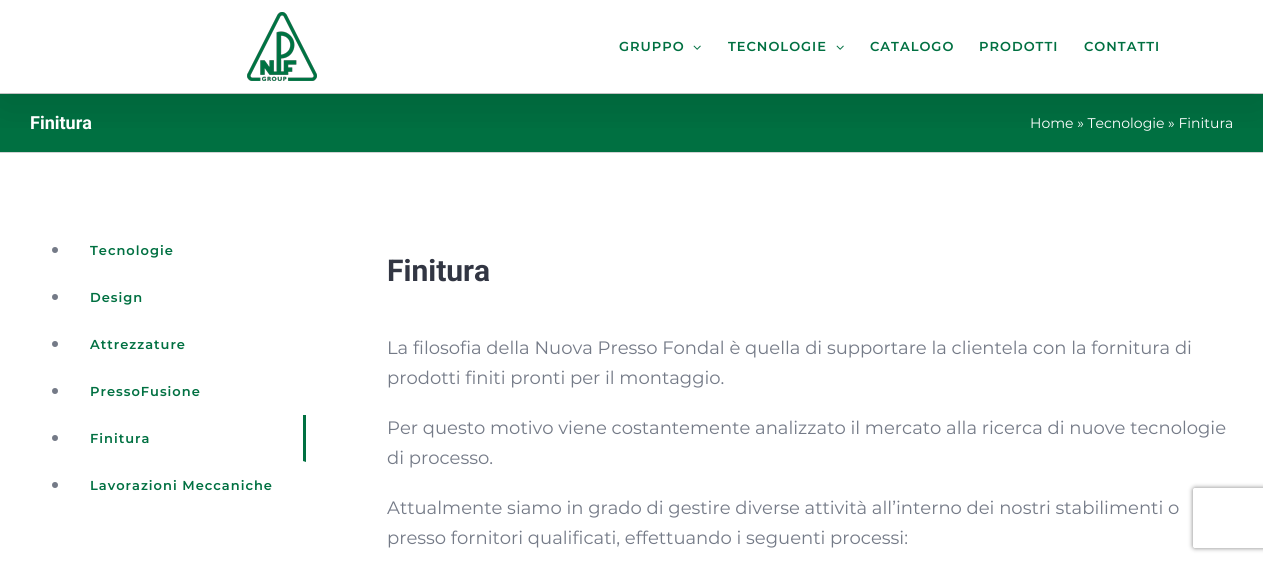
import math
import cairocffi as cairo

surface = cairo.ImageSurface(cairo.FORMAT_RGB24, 1263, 562)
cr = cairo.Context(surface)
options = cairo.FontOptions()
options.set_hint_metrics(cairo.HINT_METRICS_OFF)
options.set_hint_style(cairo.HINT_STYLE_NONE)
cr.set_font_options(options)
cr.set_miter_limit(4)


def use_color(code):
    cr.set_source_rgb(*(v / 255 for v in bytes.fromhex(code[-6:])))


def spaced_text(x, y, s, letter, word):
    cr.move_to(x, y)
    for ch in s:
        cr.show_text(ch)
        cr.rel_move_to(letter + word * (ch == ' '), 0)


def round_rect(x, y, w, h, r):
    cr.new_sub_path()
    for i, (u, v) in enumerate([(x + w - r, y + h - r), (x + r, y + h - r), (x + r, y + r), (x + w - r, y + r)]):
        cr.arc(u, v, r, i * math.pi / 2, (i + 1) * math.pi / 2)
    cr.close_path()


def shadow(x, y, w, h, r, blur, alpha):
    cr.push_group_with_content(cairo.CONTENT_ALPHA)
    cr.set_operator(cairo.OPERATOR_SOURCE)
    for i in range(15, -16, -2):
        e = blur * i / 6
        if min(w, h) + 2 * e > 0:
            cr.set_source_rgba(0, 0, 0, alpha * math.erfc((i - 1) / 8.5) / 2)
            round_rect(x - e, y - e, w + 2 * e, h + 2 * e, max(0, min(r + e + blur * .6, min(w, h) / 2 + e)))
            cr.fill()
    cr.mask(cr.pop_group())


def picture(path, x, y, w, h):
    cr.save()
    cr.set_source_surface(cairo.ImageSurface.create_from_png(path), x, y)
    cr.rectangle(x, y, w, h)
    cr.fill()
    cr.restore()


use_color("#ffffff")
cr.paint()
use_color("#007041")
cr.rectangle(0, 94, 1263, 58)
cr.fill()
use_color("#d2d3d4")
cr.rectangle(0, 93, 1263, 1)
cr.fill()
cr.rectangle(0, 152, 1263, 1)
cr.fill()
cr.save()
cr.rectangle(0, 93, 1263, 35)
cr.clip()
use_color("#000000")
shadow(2, 12, 1259, 89, 0, 25, 0.14)
cr.restore()
picture("img1.png", 247, 12, 70, 69)
cr.select_font_face("Montserrat SemiBold")
cr.set_font_size(13)
use_color("#007041")
spaced_text(619, 51, "GRUPPO", 1, 0)
picture("img2.png", 693, 45, 8, 5)
spaced_text(728, 51, "TECNOLOGIE", 1, 0)
picture("img2.png", 836, 45, 8, 5)
spaced_text(870, 51, "CATALOGO", 1, 0)
spaced_text(979, 51, "PRODOTTI", 1, 0)
spaced_text(1084, 51, "CONTATTI", 1, 0)
cr.select_font_face("Roboto", cairo.FONT_SLANT_NORMAL, cairo.FONT_WEIGHT_BOLD)
cr.set_font_size(18)
use_color("#ffffff")
cr.move_to(30, 129)
cr.show_text("Finitura")
cr.select_font_face("Montserrat")
cr.set_font_size(14)
cr.move_to(1030, 128)
cr.show_text("Home » Tecnologie » Finitura")
use_color("#747a87")
cr.new_path()
cr.arc(55, 250, 3, 0, 2 * math.pi)
cr.fill()
cr.select_font_face("Montserrat SemiBold")
cr.set_font_size(13)
use_color("#007041")
spaced_text(90, 255, "Tecnologie", 1, 0)
use_color("#747a87")
cr.new_path()
cr.arc(55, 297, 3, 0, 2 * math.pi)
cr.fill()
use_color("#007041")
spaced_text(90, 302, "Design", 1, 0)
use_color("#747a87")
cr.new_path()
cr.arc(55, 344, 3, 0, 2 * math.pi)
cr.fill()
use_color("#007041")
spaced_text(90, 349, "Attrezzature", 1, 0)
use_color("#747a87")
cr.new_path()
cr.arc(55, 391, 3, 0, 2 * math.pi)
cr.fill()
use_color("#007041")
spaced_text(90, 396, "PressoFusione", 1, 0)
use_color("#747a87")
cr.new_path()
cr.arc(55, 438, 3, 0, 2 * math.pi)
cr.fill()
use_color("#007041")
cr.new_path()
cr.move_to(306, 415)
cr.line_to(306, 462)
cr.line_to(303, 461)
cr.line_to(303, 415)
cr.close_path()
cr.fill()
spaced_text(90, 443, "Finitura", 1, 0)
use_color("#747a87")
cr.new_path()
cr.arc(55, 485, 3, 0, 2 * math.pi)
cr.fill()
use_color("#007041")
spaced_text(90, 490, "Lavorazioni Meccaniche", 1, 0)
cr.select_font_face("Roboto", cairo.FONT_SLANT_NORMAL, cairo.FONT_WEIGHT_BOLD)
cr.set_font_size(30)
use_color("#323643")
cr.move_to(387, 281)
cr.show_text("Finitura")
cr.select_font_face("Montserrat")
cr.set_font_size(18)
use_color("#747a87")
cr.move_to(387, 354)
cr.show_text("La filosofia della Nuova Presso Fondal è quella di supportare la clientela con la fornitura di")
cr.move_to(387, 384)
cr.show_text("prodotti finiti pronti per il montaggio.")
cr.move_to(387, 434)
cr.show_text("Per questo motivo viene costantemente analizzato il mercato alla ricerca di nuove tecnologie")
cr.move_to(387, 464)
cr.show_text("di processo.")
cr.move_to(387, 514)
cr.show_text("Attualmente siamo in grado di gestire diverse attività all’interno dei nostri stabilimenti o")
cr.move_to(387, 544)
cr.show_text("presso fornitori qualificati, effettuando i seguenti processi:")
cr.save()
cr.set_fill_rule(cairo.FILL_RULE_EVEN_ODD)
cr.new_path()
cr.move_to(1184, 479)
cr.line_to(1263, 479)
cr.line_to(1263, 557)
cr.line_to(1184, 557)
cr.close_path()
cr.move_to(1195, 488)
cr.line_to(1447, 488)
cr.curve_to(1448, 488, 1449, 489, 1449, 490)
cr.line_to(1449, 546)
cr.curve_to(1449, 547, 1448, 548, 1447, 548)
cr.line_to(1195, 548)
cr.curve_to(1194, 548, 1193, 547, 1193, 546)
cr.line_to(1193, 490)
cr.curve_to(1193, 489, 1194, 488, 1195, 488)
cr.close_path()
cr.clip()
use_color("#808080")
shadow(1193, 488, 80, 60, 2, 2.5, 1)
cr.restore()
surface.write_to_png("result.png")
